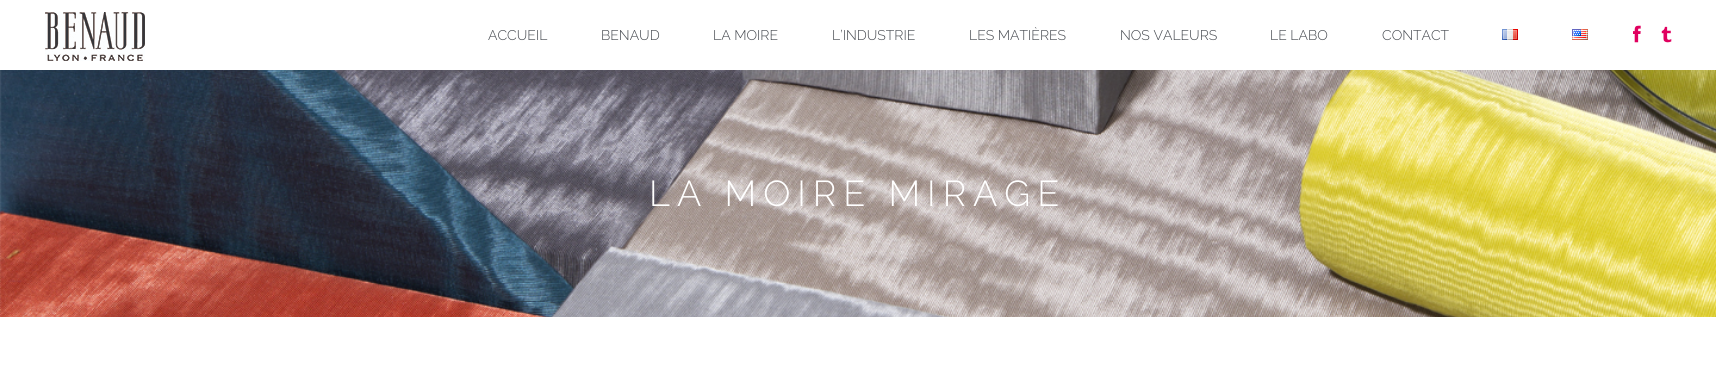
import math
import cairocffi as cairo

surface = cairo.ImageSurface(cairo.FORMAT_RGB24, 1716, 372)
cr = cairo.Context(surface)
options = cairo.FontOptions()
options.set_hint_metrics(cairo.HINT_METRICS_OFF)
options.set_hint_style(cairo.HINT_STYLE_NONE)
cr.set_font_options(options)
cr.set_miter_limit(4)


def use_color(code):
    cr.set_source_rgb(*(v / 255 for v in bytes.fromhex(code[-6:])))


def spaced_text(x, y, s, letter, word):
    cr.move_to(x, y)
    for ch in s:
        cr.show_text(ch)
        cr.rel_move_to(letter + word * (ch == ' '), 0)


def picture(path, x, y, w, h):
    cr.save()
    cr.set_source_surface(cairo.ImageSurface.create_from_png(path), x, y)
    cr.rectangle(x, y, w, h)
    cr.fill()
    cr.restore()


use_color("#ffffff")
cr.paint()
picture("img1.png", 45, 12, 100, 49)
cr.select_font_face("Raleway Thin")
cr.set_font_size(14)
use_color("#43474d")
cr.move_to(488, 40)
cr.show_text("ACCUEIL")
cr.move_to(601, 40)
cr.show_text("BENAUD")
cr.move_to(713, 40)
cr.show_text("LA MOIRE")
cr.move_to(832, 40)
cr.show_text("L’INDUSTRIE")
cr.move_to(969, 40)
cr.show_text("LES MATIÈRES")
cr.move_to(1120, 40)
cr.show_text("NOS VALEURS")
cr.move_to(1270, 40)
cr.show_text("LE LABO")
cr.move_to(1382, 40)
cr.show_text("CONTACT")
picture("img2.png", 1502, 29, 16, 11)
picture("img3.png", 1572, 29, 16, 11)
picture("img4.png", 1633, 25, 8, 18)
picture("img5.png", 1661, 26, 11, 17)
picture("img6.png", 0, 70, 1716, 247)
cr.set_font_size(36)
use_color("#ffffff")
spaced_text(649, 206, "LA MOIRE MIRAGE", 7, 0)
surface.write_to_png("result.png")
